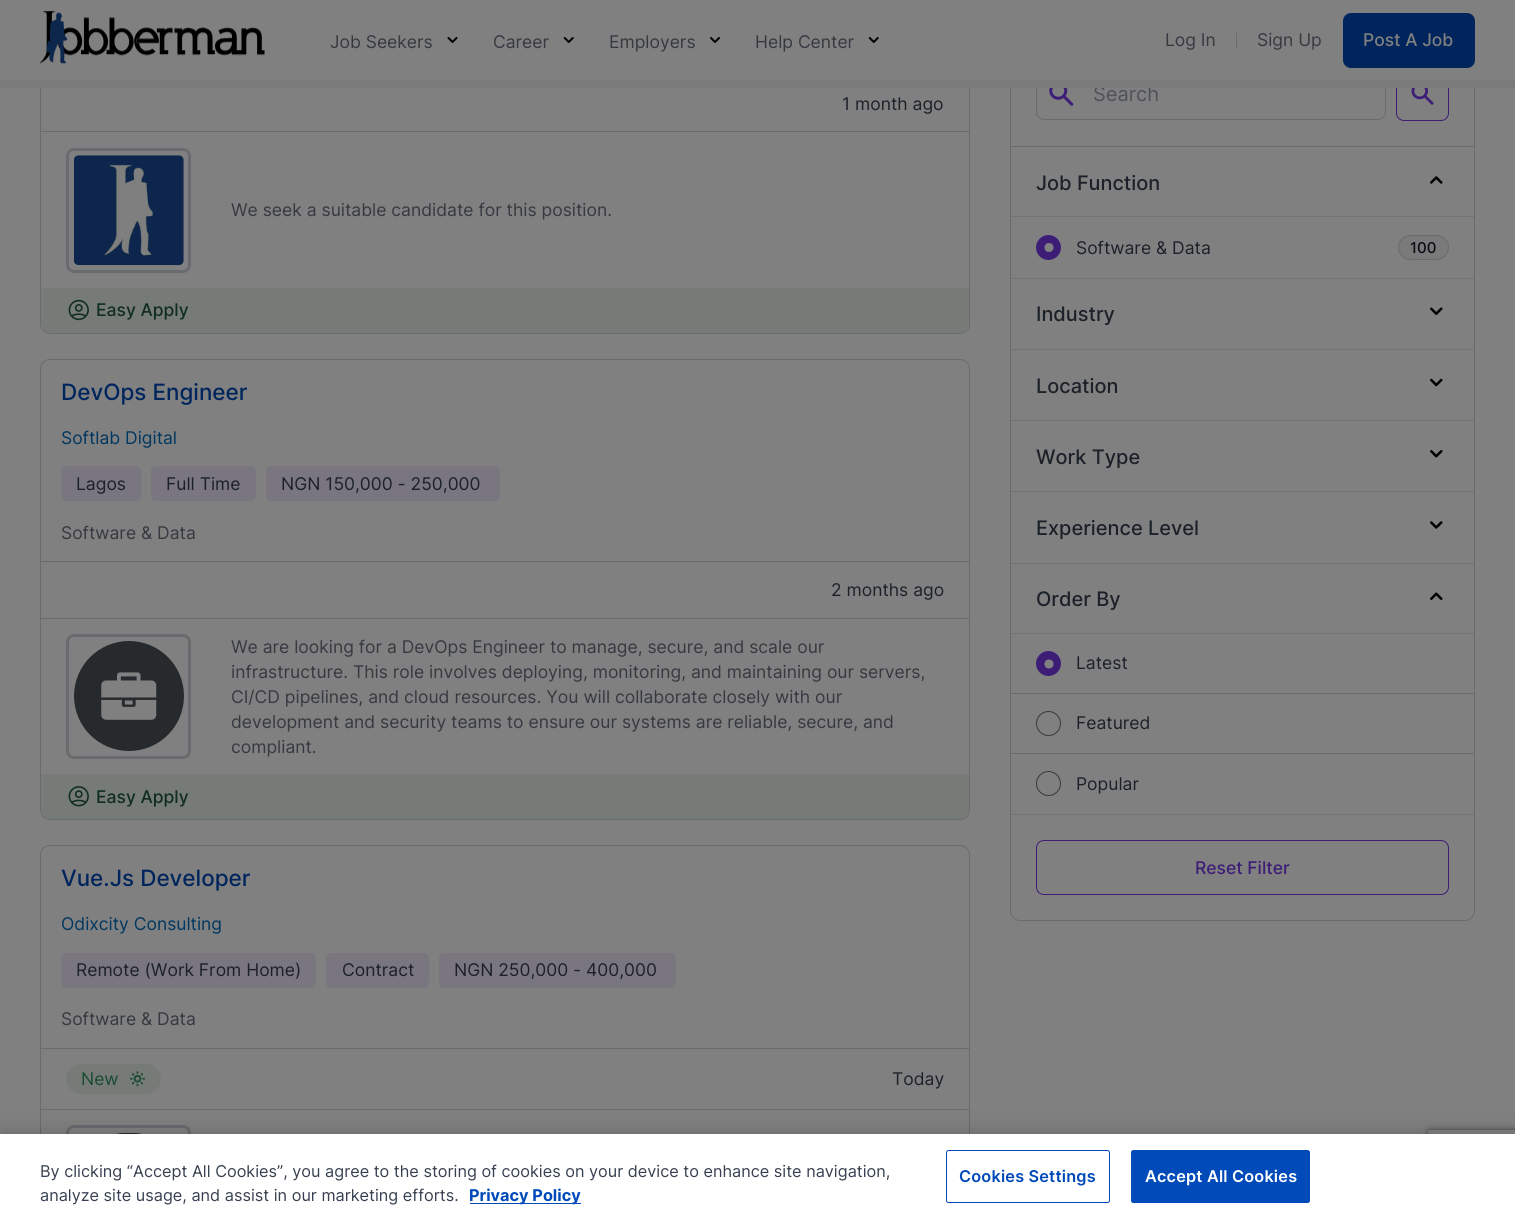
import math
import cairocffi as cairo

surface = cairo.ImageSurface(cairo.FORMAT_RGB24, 1515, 1222)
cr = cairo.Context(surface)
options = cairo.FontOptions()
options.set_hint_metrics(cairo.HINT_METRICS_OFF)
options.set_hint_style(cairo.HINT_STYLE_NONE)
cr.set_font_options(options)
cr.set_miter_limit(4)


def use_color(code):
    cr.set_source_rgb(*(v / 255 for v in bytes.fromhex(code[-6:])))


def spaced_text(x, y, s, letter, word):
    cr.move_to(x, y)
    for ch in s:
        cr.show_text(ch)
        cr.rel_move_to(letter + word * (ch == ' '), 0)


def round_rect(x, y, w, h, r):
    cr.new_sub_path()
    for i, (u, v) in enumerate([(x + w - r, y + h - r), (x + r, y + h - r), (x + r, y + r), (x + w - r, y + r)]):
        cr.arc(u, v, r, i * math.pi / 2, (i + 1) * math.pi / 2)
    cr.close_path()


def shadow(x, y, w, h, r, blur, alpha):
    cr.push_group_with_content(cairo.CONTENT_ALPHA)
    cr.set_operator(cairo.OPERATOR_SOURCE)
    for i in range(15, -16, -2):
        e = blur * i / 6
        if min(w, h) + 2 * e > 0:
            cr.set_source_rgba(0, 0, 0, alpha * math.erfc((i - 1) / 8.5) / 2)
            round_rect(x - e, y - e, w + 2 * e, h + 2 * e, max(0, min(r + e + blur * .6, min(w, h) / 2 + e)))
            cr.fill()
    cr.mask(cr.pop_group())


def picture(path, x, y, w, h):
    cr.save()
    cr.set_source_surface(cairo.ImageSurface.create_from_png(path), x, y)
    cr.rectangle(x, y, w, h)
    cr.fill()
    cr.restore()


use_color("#808080")
cr.paint()
round_rect(40.5, -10.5, 929, 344, 9.5)
use_color("#696b6e")
cr.set_line_width(1)
cr.stroke()
round_rect(1010.5, 0.5, 464, 920, 9.5)
cr.stroke()
round_rect(1036.5, 68.5, 349, 51, 7.5)
cr.stroke()
round_rect(1396.5, 66.5, 52, 54, 7.5)
use_color("#3e1d77")
cr.stroke()
use_color("#808080")
cr.rectangle(40, 0, 1435, 80)
cr.fill()
picture("img1.png", 40, 10, 225, 54)
cr.select_font_face("Inter")
cr.set_font_size(17.5)
use_color("#363940")
cr.move_to(330, 48)
cr.show_text("Job Seekers")
picture("img2.png", 447, 37, 11, 6)
cr.move_to(493, 48)
cr.show_text("Career")
picture("img3.png", 563, 37, 11, 6)
cr.move_to(609, 48)
cr.show_text("Employers")
picture("img4.png", 710, 37, 10, 6)
cr.move_to(755, 48)
cr.show_text("Help Center")
picture("img3.png", 868, 37, 11, 6)
cr.move_to(1165, 46)
cr.show_text("Log In")
use_color("#696b6e")
cr.rectangle(1236, 33, 1, 15)
cr.fill()
use_color("#363940")
cr.move_to(1257, 46)
cr.show_text("Sign Up")
use_color("#00255d")
round_rect(1343, 13, 132, 55, 8)
cr.fill()
cr.select_font_face("Inter Medium")
use_color("#808080")
cr.move_to(1363, 46)
cr.show_text("Post A Job")
cr.select_font_face("Inter")
cr.set_font_size(20)
use_color("#4e5258")
cr.move_to(1093, 101)
cr.show_text("Search")
use_color("#7a7a7b")
cr.rectangle(0, 80, 1515, 8)
cr.fill()
cr.set_font_size(17.5)
use_color("#1c2129")
cr.move_to(842, 110)
cr.show_text("1 month ago")
use_color("#696b6e")
cr.rectangle(41, 131, 928, 1)
cr.fill()
round_rect(67.5, 149.5, 122, 122, 6.5)
cr.set_line_width(3)
cr.stroke()
picture("img5.png", 73, 155, 111, 111)
use_color("#363940")
cr.move_to(231, 216)
cr.show_text("We seek a suitable candidate for this position.")
use_color("#767b78")
cr.new_path()
cr.move_to(41, 288)
cr.line_to(969, 288)
cr.line_to(969, 323)
cr.curve_to(969, 328.5, 964.5, 333, 959, 333)
cr.line_to(51, 333)
cr.curve_to(45.5, 333, 41, 328.5, 41, 323)
cr.close_path()
cr.fill()
picture("img6.png", 68, 299, 21, 22)
cr.select_font_face("Inter Medium")
use_color("#112d1d")
cr.move_to(96, 316)
cr.show_text("Easy Apply")
round_rect(40.5, 359.5, 929, 460, 9.5)
use_color("#696b6e")
cr.set_line_width(1)
cr.stroke()
cr.set_font_size(22.5)
use_color("#00255d")
cr.move_to(61, 400)
cr.show_text("DevOps Engineer")
cr.select_font_face("Inter")
cr.set_font_size(17.5)
use_color("#003760")
cr.move_to(61, 444)
cr.show_text("Softlab Digital")
use_color("#79767f")
round_rect(61, 466, 80, 35, 5)
cr.fill()
use_color("#1c2129")
cr.move_to(76, 490)
cr.show_text("Lagos")
use_color("#79767f")
round_rect(151, 466, 105, 35, 5)
cr.fill()
use_color("#1c2129")
cr.move_to(166, 490)
cr.show_text("Full Time")
use_color("#79767f")
round_rect(266, 466, 234, 35, 5)
cr.fill()
use_color("#1c2129")
cr.move_to(281, 490)
cr.show_text("NGN 150,000 - 250,000")
use_color("#363940")
cr.move_to(61, 539)
cr.show_text("Software & Data")
use_color("#696b6e")
cr.rectangle(41, 561, 928, 1)
cr.fill()
use_color("#1c2129")
cr.move_to(831, 596)
cr.show_text("2 months ago")
use_color("#696b6e")
cr.rectangle(41, 618, 928, 1)
cr.fill()
round_rect(67.5, 635.5, 122, 122, 6.5)
cr.set_line_width(3)
cr.stroke()
picture("img7.png", 74, 641, 110, 110)
use_color("#363940")
cr.move_to(231, 653)
cr.show_text("We are looking for a DevOps Engineer to manage, secure, and scale our")
cr.move_to(231, 678)
cr.show_text("infrastructure. This role involves deploying, monitoring, and maintaining our servers,")
cr.move_to(231, 703)
cr.show_text("CI/CD pipelines, and cloud resources. You will collaborate closely with our")
cr.move_to(231, 728)
cr.show_text("development and security teams to ensure our systems are reliable, secure, and")
cr.move_to(231, 753)
cr.show_text("compliant.")
use_color("#767b78")
cr.new_path()
cr.move_to(41, 774)
cr.line_to(969, 774)
cr.line_to(969, 809)
cr.curve_to(969, 814.5, 964.5, 819, 959, 819)
cr.line_to(51, 819)
cr.curve_to(45.5, 819, 41, 814.5, 41, 809)
cr.close_path()
cr.fill()
picture("img8.png", 68, 786, 21, 21)
cr.select_font_face("Inter Medium")
use_color("#112d1d")
cr.move_to(96, 803)
cr.show_text("Easy Apply")
round_rect(40.5, 845.5, 929, 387, 9.5)
use_color("#696b6e")
cr.set_line_width(1)
cr.stroke()
cr.set_font_size(22.5)
use_color("#00255d")
cr.move_to(61, 886)
cr.show_text("Vue.Js Developer")
cr.select_font_face("Inter")
cr.set_font_size(17.5)
use_color("#003760")
cr.move_to(61, 930)
cr.show_text("Odixcity Consulting")
use_color("#79767f")
round_rect(61, 953, 255, 35, 5)
cr.fill()
use_color("#1c2129")
cr.move_to(76, 976)
cr.show_text("Remote (Work From Home)")
use_color("#79767f")
round_rect(326, 953, 103, 35, 5)
cr.fill()
use_color("#1c2129")
cr.move_to(342, 976)
cr.show_text("Contract")
use_color("#79767f")
round_rect(439, 953, 237, 35, 5)
cr.fill()
use_color("#1c2129")
cr.move_to(454, 976)
cr.show_text("NGN 250,000 - 400,000")
use_color("#363940")
cr.move_to(61, 1025)
cr.show_text("Software & Data")
use_color("#696b6e")
cr.rectangle(41, 1048, 928, 1)
cr.fill()
use_color("#767b78")
round_rect(66, 1064, 95, 30, 15)
cr.fill()
use_color("#1c4b30")
cr.move_to(81, 1085)
cr.show_text("New")
picture("img9.png", 130, 1071, 15, 16)
use_color("#1c2129")
cr.move_to(892, 1085)
cr.show_text("Today")
use_color("#696b6e")
cr.rectangle(41, 1109, 928, 1)
cr.fill()
round_rect(67.5, 1126.5, 122, 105, 6.5)
cr.set_line_width(3)
cr.stroke()
picture("img10.png", 116, 1133, 26, 1)
cr.save()
cr.set_fill_rule(cairo.FILL_RULE_EVEN_ODD)
cr.new_path()
cr.move_to(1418, 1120)
cr.line_to(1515, 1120)
cr.line_to(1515, 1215)
cr.line_to(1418, 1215)
cr.close_path()
cr.move_to(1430.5, 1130)
cr.line_to(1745.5, 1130)
cr.curve_to(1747, 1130, 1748, 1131, 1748, 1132.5)
cr.line_to(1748, 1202.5)
cr.curve_to(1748, 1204, 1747, 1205, 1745.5, 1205)
cr.line_to(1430.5, 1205)
cr.curve_to(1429, 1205, 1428, 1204, 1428, 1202.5)
cr.line_to(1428, 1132.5)
cr.curve_to(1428, 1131, 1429, 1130, 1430.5, 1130)
cr.close_path()
cr.clip()
use_color("#404040")
shadow(1428, 1130, 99, 75, 2.5, 3, 1)
cr.restore()
cr.rectangle(1011, 146, 463, 1)
cr.fill()
picture("img11.png", 1049, 88, 25, 18)
picture("img12.png", 1411, 88, 23, 17)
use_color("#737476")
cr.rectangle(1011, 278, 463, 1)
cr.fill()
cr.rectangle(1011, 216, 463, 1)
cr.fill()
cr.select_font_face("Inter Medium")
cr.set_font_size(20)
use_color("#1c2129")
cr.move_to(1036, 190)
cr.show_text("Job Function")
picture("img13.png", 1430, 176, 13, 8)
use_color("#3e1d77")
cr.arc(1048.5, 247.5, 12.5, 0, 2 * math.pi)
cr.fill()
use_color("#808080")
cr.arc(1049, 247.5, 4.5, 0, 2 * math.pi)
cr.fill()
cr.select_font_face("Inter")
cr.set_font_size(17.5)
use_color("#1c2129")
cr.move_to(1076, 254)
cr.show_text("Software & Data")
use_color("#7a7a7b")
round_rect(1398.5, 235.5, 50, 24, 12)
cr.fill_preserve()
use_color("#696b6e")
cr.set_line_width(1)
cr.stroke()
cr.select_font_face("Inter Medium")
cr.set_font_size(15)
use_color("#090c14")
cr.move_to(1410, 253)
cr.show_text("100")
use_color("#737476")
cr.rectangle(1011, 349, 463, 1)
cr.fill()
cr.set_font_size(20)
use_color("#1c2129")
cr.move_to(1036, 321)
cr.show_text("Industry")
picture("img14.png", 1430, 307, 13, 8)
use_color("#737476")
cr.rectangle(1011, 420, 463, 1)
cr.fill()
use_color("#1c2129")
cr.move_to(1036, 393)
cr.show_text("Location")
picture("img15.png", 1430, 378, 13, 9)
use_color("#737476")
cr.rectangle(1011, 491, 463, 1)
cr.fill()
use_color("#1c2129")
cr.move_to(1036, 464)
cr.show_text("Work Type")
picture("img16.png", 1430, 450, 13, 8)
use_color("#737476")
cr.rectangle(1011, 563, 463, 1)
cr.fill()
use_color("#1c2129")
cr.move_to(1036, 535)
cr.show_text("Experience Level")
picture("img17.png", 1430, 521, 13, 8)
use_color("#737476")
cr.rectangle(1011, 814, 463, 1)
cr.fill()
cr.rectangle(1011, 633, 463, 1)
cr.fill()
use_color("#1c2129")
cr.move_to(1036, 606)
cr.show_text("Order By")
picture("img18.png", 1430, 592, 13, 8)
use_color("#696b6e")
cr.rectangle(1011, 693, 463, 1)
cr.fill()
use_color("#3e1d77")
cr.arc(1048.5, 663.5, 12.5, 0, 2 * math.pi)
cr.fill()
use_color("#808080")
cr.arc(1049, 664, 4.5, 0, 2 * math.pi)
cr.fill()
cr.select_font_face("Inter")
cr.set_font_size(17.5)
use_color("#1c2129")
cr.move_to(1076, 669)
cr.show_text("Latest")
use_color("#696b6e")
cr.rectangle(1011, 753, 463, 1)
cr.fill()
cr.arc(1048.5, 723.5, 12, 0, 2 * math.pi)
use_color("#363940")
cr.stroke()
use_color("#1c2129")
cr.move_to(1076, 729)
cr.show_text("Featured")
cr.new_path()
cr.arc(1048.5, 783.5, 12, 0, 2 * math.pi)
use_color("#363940")
cr.stroke()
use_color("#1c2129")
cr.move_to(1076, 790)
cr.show_text("Popular")
round_rect(1036.5, 840.5, 412, 54, 7.5)
use_color("#3e1d77")
cr.stroke()
cr.select_font_face("Inter Medium")
cr.move_to(1195, 874)
cr.show_text("Reset Filter")
use_color("#000000")
shadow(0, 1134, 1515, 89, 0, 11, 0.2)
use_color("#ffffff")
cr.rectangle(0, 1134, 1515, 88)
cr.fill()
cr.select_font_face("Inter")
cr.set_font_size(16.25)
use_color("#374151")
cr.move_to(40, 1177)
cr.show_text("By clicking “Accept All Cookies”, you agree to the storing of cookies on your device to enhance site navigation,")
cr.move_to(40, 1201)
cr.show_text("analyze site usage, and assist in our marketing efforts.")
use_color("#004ab9")
cr.rectangle(470, 1203, 111, 1)
cr.fill()
cr.select_font_face("Inter", cairo.FONT_SLANT_NORMAL, cairo.FONT_WEIGHT_BOLD)
cr.move_to(469, 1201)
cr.show_text("Privacy Policy")
round_rect(946.5, 1150.5, 163, 52, 2)
cr.stroke()
cr.select_font_face("Inter SemiBold")
spaced_text(959, 1182, "Cookies Settings", 0.2, 0)
round_rect(1131.5, 1150.5, 178, 52, 2)
cr.fill_preserve()
cr.stroke()
use_color("#ffffff")
spaced_text(1145, 1182, "Accept All Cookies", 0.2, 0)
surface.write_to_png("result.png")
